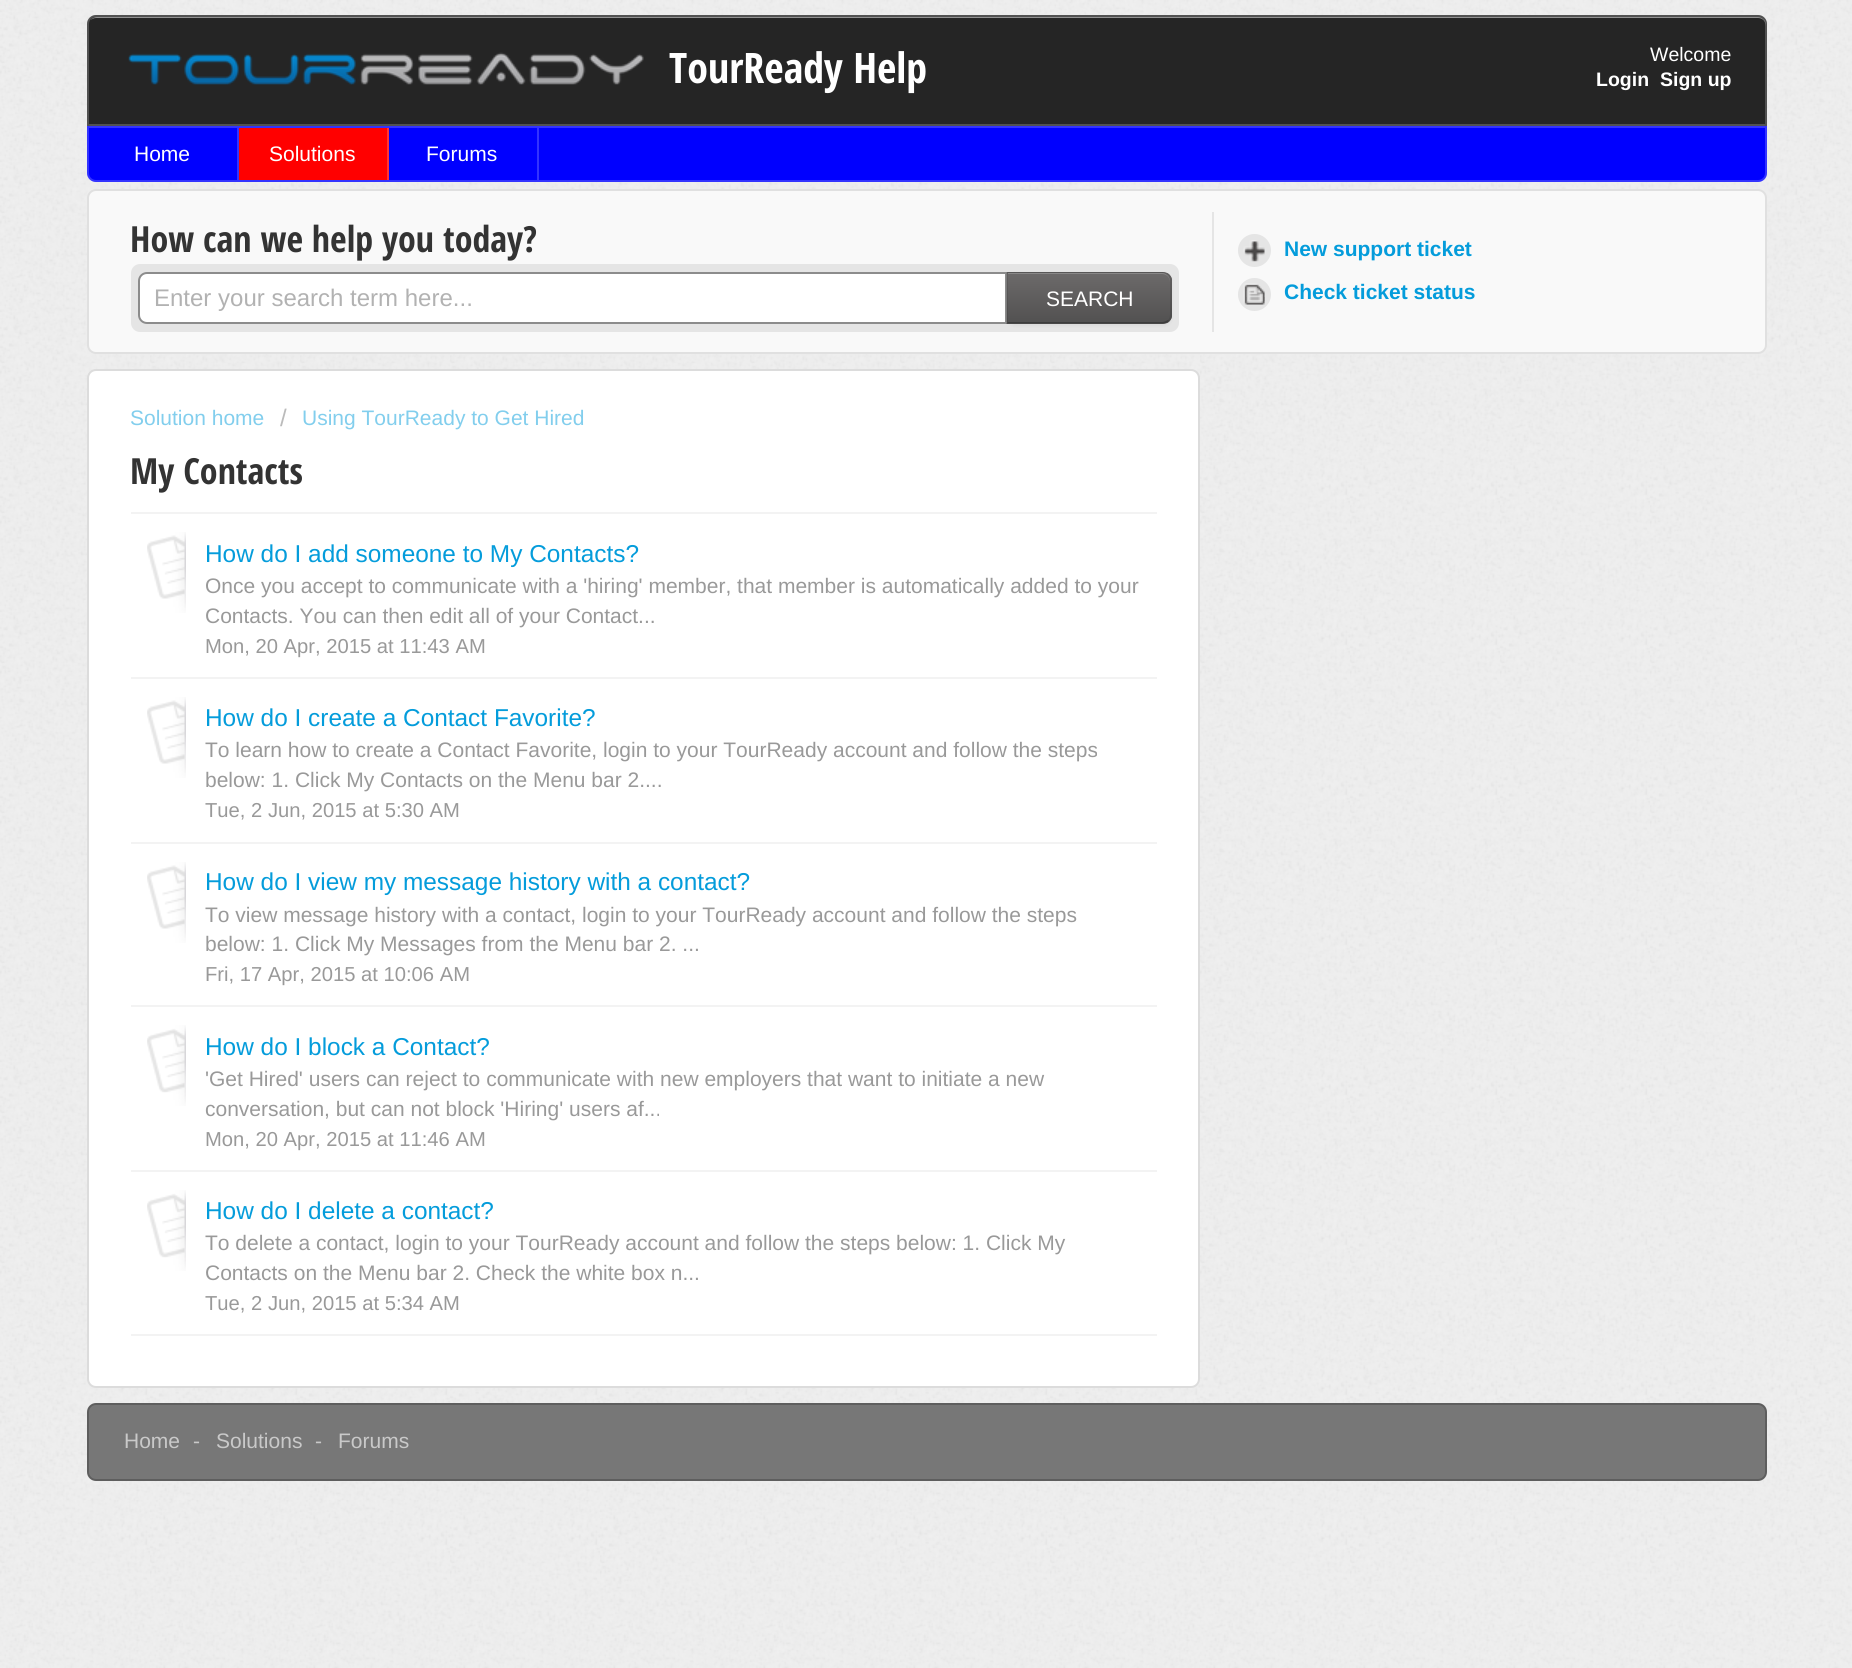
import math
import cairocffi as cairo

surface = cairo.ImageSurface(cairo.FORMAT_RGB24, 1852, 1668)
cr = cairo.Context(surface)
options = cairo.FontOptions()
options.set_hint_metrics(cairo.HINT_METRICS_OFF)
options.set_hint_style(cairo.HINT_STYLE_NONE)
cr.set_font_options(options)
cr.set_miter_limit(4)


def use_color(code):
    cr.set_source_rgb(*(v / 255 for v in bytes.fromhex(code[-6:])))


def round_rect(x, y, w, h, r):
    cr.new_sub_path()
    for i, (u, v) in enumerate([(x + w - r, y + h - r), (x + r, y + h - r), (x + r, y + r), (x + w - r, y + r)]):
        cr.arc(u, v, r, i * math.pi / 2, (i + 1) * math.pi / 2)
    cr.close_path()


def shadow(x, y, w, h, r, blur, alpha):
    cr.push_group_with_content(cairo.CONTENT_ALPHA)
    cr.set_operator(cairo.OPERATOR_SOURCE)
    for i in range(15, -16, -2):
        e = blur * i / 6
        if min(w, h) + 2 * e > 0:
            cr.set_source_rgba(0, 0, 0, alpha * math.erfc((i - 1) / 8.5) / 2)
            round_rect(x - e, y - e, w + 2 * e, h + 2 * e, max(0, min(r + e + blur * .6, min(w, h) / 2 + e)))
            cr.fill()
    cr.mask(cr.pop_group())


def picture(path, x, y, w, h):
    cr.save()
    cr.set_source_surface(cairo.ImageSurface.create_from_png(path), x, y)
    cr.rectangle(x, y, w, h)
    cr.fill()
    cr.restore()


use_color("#efefef")
cr.paint()
picture("img1.png", 0, 0, 1852, 1668)
use_color("#252525")
cr.new_path()
cr.move_to(96, 15)
cr.line_to(1758, 15)
cr.curve_to(1763, 15, 1767, 19, 1767, 24)
cr.line_to(1767, 126)
cr.line_to(87, 126)
cr.line_to(87, 24)
cr.curve_to(87, 19, 91, 15, 96, 15)
cr.close_path()
cr.fill()
use_color("#929292")
cr.new_path()
cr.move_to(96, 18)
cr.line_to(1758, 18)
cr.curve_to(1762, 18, 1766, 21, 1766, 26)
cr.line_to(1766, 25)
cr.curve_to(1766, 21, 1762, 17, 1758, 17)
cr.line_to(97, 17)
cr.curve_to(95, 17, 92, 18, 91, 20)
cr.curve_to(92, 19, 94, 18, 96, 18)
cr.close_path()
cr.fill()
cr.new_path()
cr.move_to(96, 16)
cr.line_to(1758, 16)
cr.curve_to(1762.5, 16, 1766, 19.5, 1766, 24)
cr.line_to(1766, 125)
cr.line_to(88, 125)
cr.line_to(88, 24)
cr.curve_to(88, 19.5, 91.5, 16, 96, 16)
cr.close_path()
cr.set_source_rgba(1, 1, 1, 0.2)
cr.stroke()
picture("img2.png", 128, 52, 516, 33)
cr.select_font_face("Open Sans Condensed", cairo.FONT_SLANT_NORMAL, cairo.FONT_WEIGHT_BOLD)
cr.set_font_size(42)
use_color("#ffffff")
cr.move_to(669, 83)
cr.show_text("TourReady Help")
cr.select_font_face("Liberation Sans")
cr.set_font_size(19.5)
cr.move_to(1650, 61)
cr.show_text("Welcome")
cr.select_font_face("Liberation Sans", cairo.FONT_SLANT_NORMAL, cairo.FONT_WEIGHT_BOLD)
cr.move_to(1596, 86)
cr.show_text("Login")
cr.move_to(1660, 86)
cr.show_text("Sign up")
use_color("#0000ff")
cr.new_path()
cr.move_to(87, 126)
cr.line_to(1767, 126)
cr.line_to(1767, 173)
cr.curve_to(1767, 178, 1763, 182, 1758, 182)
cr.line_to(96, 182)
cr.curve_to(91, 182, 87, 178, 87, 173)
cr.close_path()
cr.fill()
cr.new_path()
cr.move_to(88, 127)
cr.line_to(1766, 127)
cr.line_to(1766, 173)
cr.curve_to(1766, 177.5, 1762.5, 181, 1758, 181)
cr.line_to(96, 181)
cr.curve_to(91.5, 181, 88, 177.5, 88, 173)
cr.close_path()
cr.set_source_rgba(1, 1, 1, 0.2)
cr.stroke()
use_color("#3333ff")
cr.rectangle(237, 128, 2, 52)
cr.fill()
cr.select_font_face("Liberation Sans")
cr.set_font_size(21)
use_color("#ffffff")
cr.move_to(134, 161)
cr.show_text("Home")
use_color("#ff0000")
cr.rectangle(239, 128, 148, 52)
cr.fill()
use_color("#ff3333")
cr.rectangle(387, 128, 2, 52)
cr.fill()
use_color("#ffffff")
cr.move_to(269, 161)
cr.show_text("Solutions")
use_color("#3333ff")
cr.rectangle(537, 128, 2, 52)
cr.fill()
use_color("#ffffff")
cr.move_to(426, 161)
cr.show_text("Forums")
use_color("#f9f9f9")
round_rect(88, 190, 1678, 163, 8)
cr.fill_preserve()
use_color("#e0e0e0")
cr.stroke()
use_color("#e5e5e5")
cr.rectangle(1212, 212, 2, 120)
cr.fill()
cr.select_font_face("Open Sans Condensed", cairo.FONT_SLANT_NORMAL, cairo.FONT_WEIGHT_BOLD)
cr.set_font_size(36)
use_color("#333333")
cr.move_to(130, 252)
cr.show_text("How can we help you today?")
use_color("#e5e5e5")
round_rect(131, 264, 1048, 68, 9)
cr.fill()
use_color("#ffffff")
cr.new_path()
cr.move_to(147, 273)
cr.line_to(1006, 273)
cr.line_to(1006, 323)
cr.line_to(147, 323)
cr.curve_to(142.5, 323, 139, 319.5, 139, 315)
cr.line_to(139, 281)
cr.curve_to(139, 276.5, 142.5, 273, 147, 273)
cr.close_path()
cr.fill_preserve()
use_color("#8c8c8c")
cr.stroke()
cr.select_font_face("Liberation Sans")
cr.set_font_size(24)
use_color("#b2b2b2")
cr.move_to(154, 306)
cr.show_text("Enter your search term here...")
use_color("#000000")
shadow(1007, 273, 165, 53, 9, 1.5, 0.05)
use_color("#626060")
cr.new_path()
cr.move_to(1007, 272)
cr.line_to(1163, 272)
cr.curve_to(1168, 272, 1172, 276, 1172, 281)
cr.line_to(1172, 315)
cr.curve_to(1172, 320, 1168, 324, 1163, 324)
cr.line_to(1007, 324)
cr.close_path()
cr.fill()
cr.save()
cr.new_path()
cr.move_to(1007, 272)
cr.line_to(1163, 272)
cr.curve_to(1168, 272, 1172, 276, 1172, 281)
cr.line_to(1172, 315)
cr.curve_to(1172, 320, 1168, 324, 1163, 324)
cr.line_to(1007, 324)
cr.close_path()
cr.clip()
gradient = cairo.LinearGradient(1089, 273, 1089, 323)
gradient.add_color_stop_rgba(0, 0.424, 0.416, 0.416, 1)
gradient.add_color_stop_rgba(1, 0.322, 0.318, 0.318, 1)
cr.set_source(gradient)
cr.rectangle(1007, 273, 165, 50)
cr.fill()
cr.restore()
use_color("#898888")
cr.new_path()
cr.move_to(1008, 274)
cr.line_to(1162, 274)
cr.curve_to(1167, 274, 1170, 278, 1170, 282)
cr.line_to(1170, 281)
cr.curve_to(1170, 277, 1166, 273, 1162, 273)
cr.line_to(1008, 273)
cr.close_path()
cr.fill()
cr.set_source_rgba(0, 0, 0, 0.1)
cr.new_path()
cr.move_to(1008, 273)
cr.line_to(1164, 273)
cr.line_to(1168, 275)
cr.line_to(1169, 274)
cr.curve_to(1167, 273, 1164, 272, 1162, 272)
cr.line_to(1007, 272)
cr.close_path()
cr.fill()
cr.new_path()
cr.move_to(1169, 274)
cr.line_to(1172, 278)
cr.line_to(1172, 318)
cr.line_to(1169, 321)
cr.line_to(1168, 320)
cr.curve_to(1169, 319, 1170, 317, 1170, 315)
cr.line_to(1170, 280)
cr.curve_to(1170, 278, 1169, 276, 1168, 275)
cr.close_path()
cr.fill()
cr.set_source_rgba(0, 0, 0, 0.25)
cr.new_path()
cr.move_to(1006, 324)
cr.line_to(1162, 324)
cr.curve_to(1164, 324, 1167, 323, 1169, 321)
cr.line_to(1168, 320)
cr.curve_to(1166, 321, 1164, 322, 1162, 322)
cr.line_to(1008, 322)
cr.close_path()
cr.fill()
cr.set_source_rgba(0, 0, 0, 0.1)
cr.new_path()
cr.move_to(1008, 273)
cr.line_to(1006, 272)
cr.line_to(1006, 324)
cr.line_to(1008, 322)
cr.close_path()
cr.fill()
cr.set_font_size(21)
use_color("#ffffff")
cr.move_to(1046, 306)
cr.show_text("SEARCH")
use_color("#e5e5e5")
cr.new_path()
cr.arc(1254.5, 250.5, 16.5, 0, 2 * math.pi)
cr.fill()
picture("img3.png", 1243, 240, 22, 22)
cr.select_font_face("Liberation Sans", cairo.FONT_SLANT_NORMAL, cairo.FONT_WEIGHT_BOLD)
use_color("#049cdb")
cr.move_to(1284, 256)
cr.show_text("New support ticket")
use_color("#e5e5e5")
cr.new_path()
cr.arc(1254.5, 294.5, 16.5, 0, 2 * math.pi)
cr.fill()
picture("img4.png", 1243, 283, 22, 22)
use_color("#049cdb")
cr.move_to(1284, 299)
cr.show_text("Check ticket status")
use_color("#ffffff")
round_rect(88, 370, 1111, 1017, 8)
cr.fill_preserve()
use_color("#dcdcdc")
cr.stroke()
cr.select_font_face("Liberation Sans")
use_color("#82ceed")
cr.move_to(130, 425)
cr.show_text("Solution home")
cr.set_font_size(24)
use_color("#bbbbbb")
cr.move_to(280, 426)
cr.show_text("/")
cr.set_font_size(21)
use_color("#82ceed")
cr.move_to(302, 425)
cr.show_text("Using TourReady to Get Hired")
cr.select_font_face("Open Sans Condensed", cairo.FONT_SLANT_NORMAL, cairo.FONT_WEIGHT_BOLD)
cr.set_font_size(36)
use_color("#333333")
cr.move_to(130, 484)
cr.show_text("My Contacts")
use_color("#f3f3f3")
cr.rectangle(131, 1334, 1026, 2)
cr.fill()
cr.rectangle(131, 512, 1026, 2)
cr.fill()
picture("img5.png", 147, 532, 39, 81)
cr.select_font_face("Liberation Sans")
cr.set_font_size(24.4)
use_color("#049cdb")
cr.move_to(205, 562)
cr.show_text("How do I add someone to My Contacts?")
cr.set_font_size(21)
use_color("#999999")
cr.move_to(205, 593)
cr.show_text("Once you accept to communicate with a 'hiring' member, that member is automatically added to your")
cr.move_to(205, 623)
cr.show_text("Contacts. You can then edit all of your Contact...")
cr.set_font_size(20.2)
cr.move_to(205, 653)
cr.show_text("Mon, 20 Apr, 2015 at 11:43 AM")
use_color("#f3f3f3")
cr.rectangle(131, 677, 1026, 2)
cr.fill()
picture("img5.png", 147, 697, 39, 81)
cr.set_font_size(24.4)
use_color("#049cdb")
cr.move_to(205, 726)
cr.show_text("How do I create a Contact Favorite?")
cr.set_font_size(21)
use_color("#999999")
cr.move_to(205, 757)
cr.show_text("To learn how to create a Contact Favorite, login to your TourReady account and follow the steps")
cr.move_to(205, 787)
cr.show_text("below: 1. Click My Contacts on the Menu bar 2....")
cr.set_font_size(20.2)
cr.move_to(205, 817)
cr.show_text("Tue, 2 Jun, 2015 at 5:30 AM")
use_color("#f3f3f3")
cr.rectangle(131, 842, 1026, 2)
cr.fill()
picture("img5.png", 147, 862, 39, 81)
cr.set_font_size(24.4)
use_color("#049cdb")
cr.move_to(205, 890)
cr.show_text("How do I view my message history with a contact?")
cr.set_font_size(21)
use_color("#999999")
cr.move_to(205, 922)
cr.show_text("To view message history with a contact, login to your TourReady account and follow the steps")
cr.move_to(205, 951)
cr.show_text("below: 1. Click My Messages from the Menu bar 2. ...")
cr.set_font_size(20.2)
cr.move_to(205, 981)
cr.show_text("Fri, 17 Apr, 2015 at 10:06 AM")
use_color("#f3f3f3")
cr.rectangle(131, 1005, 1026, 2)
cr.fill()
picture("img6.png", 147, 1025, 39, 81)
cr.set_font_size(24.4)
use_color("#049cdb")
cr.move_to(205, 1055)
cr.show_text("How do I block a Contact?")
cr.set_font_size(21)
use_color("#999999")
cr.move_to(205, 1086)
cr.show_text("'Get Hired' users can reject to communicate with new employers that want to initiate a new")
cr.move_to(205, 1116)
cr.show_text("conversation, but can not block 'Hiring' users af...")
cr.set_font_size(20.2)
cr.move_to(205, 1146)
cr.show_text("Mon, 20 Apr, 2015 at 11:46 AM")
use_color("#f3f3f3")
cr.rectangle(131, 1170, 1026, 2)
cr.fill()
picture("img6.png", 147, 1190, 39, 81)
cr.set_font_size(24.4)
use_color("#049cdb")
cr.move_to(205, 1219)
cr.show_text("How do I delete a contact?")
cr.set_font_size(21)
use_color("#999999")
cr.move_to(205, 1250)
cr.show_text("To delete a contact, login to your TourReady account and follow the steps below: 1. Click My")
cr.move_to(205, 1280)
cr.show_text("Contacts on the Menu bar 2. Check the white box n...")
cr.set_font_size(20.2)
cr.move_to(205, 1310)
cr.show_text("Tue, 2 Jun, 2015 at 5:34 AM")
use_color("#777777")
round_rect(88, 1404, 1678, 76, 8)
cr.fill_preserve()
use_color("#5e5e5e")
cr.stroke()
cr.set_font_size(21)
use_color("#c9c9c9")
cr.move_to(124, 1448)
cr.show_text("Home")
cr.move_to(193, 1448)
cr.show_text("-")
cr.move_to(216, 1448)
cr.show_text("Solutions")
cr.move_to(315, 1448)
cr.show_text("-")
cr.move_to(338, 1448)
cr.show_text("Forums")
surface.write_to_png("result.png")
